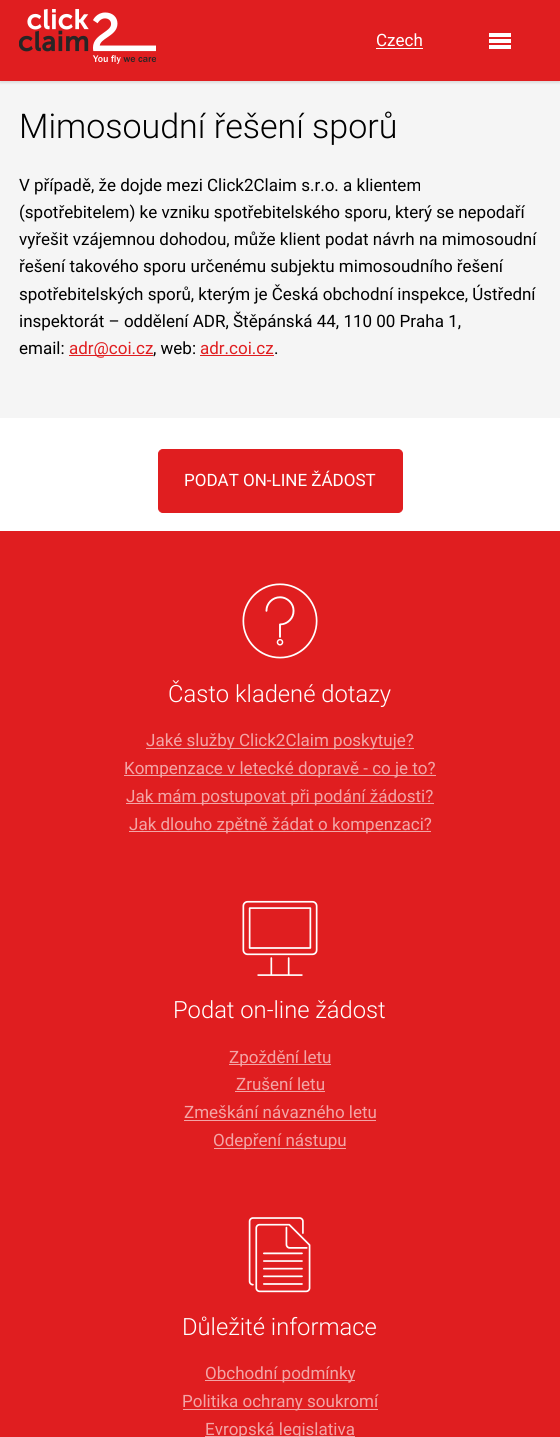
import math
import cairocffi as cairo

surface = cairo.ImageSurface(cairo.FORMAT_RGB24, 560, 1437)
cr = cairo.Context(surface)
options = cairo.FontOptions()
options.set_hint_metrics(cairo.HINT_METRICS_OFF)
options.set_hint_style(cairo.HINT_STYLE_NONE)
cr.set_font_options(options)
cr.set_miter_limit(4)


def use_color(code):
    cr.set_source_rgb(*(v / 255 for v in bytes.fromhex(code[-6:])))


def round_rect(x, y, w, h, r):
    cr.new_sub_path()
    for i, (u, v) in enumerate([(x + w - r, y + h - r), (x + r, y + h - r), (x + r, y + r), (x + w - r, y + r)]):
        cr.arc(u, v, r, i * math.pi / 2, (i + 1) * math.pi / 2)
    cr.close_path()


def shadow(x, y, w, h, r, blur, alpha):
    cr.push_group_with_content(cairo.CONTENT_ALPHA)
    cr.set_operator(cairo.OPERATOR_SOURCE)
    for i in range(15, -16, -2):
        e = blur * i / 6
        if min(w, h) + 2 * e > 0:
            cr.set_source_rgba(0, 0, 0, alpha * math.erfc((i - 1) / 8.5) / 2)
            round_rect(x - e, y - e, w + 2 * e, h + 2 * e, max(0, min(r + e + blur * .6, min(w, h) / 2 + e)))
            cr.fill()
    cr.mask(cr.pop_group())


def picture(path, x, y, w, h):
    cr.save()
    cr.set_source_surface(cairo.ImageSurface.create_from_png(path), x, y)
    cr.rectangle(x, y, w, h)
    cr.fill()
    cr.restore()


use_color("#ffffff")
cr.paint()
use_color("#f5f5f5")
cr.rectangle(0, 81, 560, 337)
cr.fill()
use_color("#000000")
shadow(0, 1, 560, 82, 0, 1, 0.1)
use_color("#e01e20")
cr.rectangle(0, 0, 560, 81)
cr.fill()
picture("img1.png", 19, 9, 137, 55)
cr.select_font_face("Roboto")
cr.set_font_size(17)
use_color("#ffffff")
cr.move_to(376, 46)
cr.show_text("Czech")
cr.rectangle(376, 48, 47, 1)
cr.fill()
cr.rectangle(489, 33, 22, 4)
cr.fill()
cr.rectangle(489, 39, 22, 4)
cr.fill()
cr.rectangle(489, 45, 22, 4)
cr.fill()
cr.select_font_face("Roboto Light")
cr.set_font_size(34)
use_color("#000000")
cr.move_to(19, 138)
cr.show_text("Mimosoudní řešení sporů")
cr.select_font_face("Roboto")
cr.set_font_size(17)
cr.move_to(19, 191)
cr.show_text("V případě, že dojde mezi Click2Claim s.r.o. a klientem")
cr.move_to(19, 218)
cr.show_text("(spotřebitelem) ke vzniku spotřebitelského sporu, který se nepodaří")
cr.move_to(19, 245)
cr.show_text("vyřešit vzájemnou dohodou, může klient podat návrh na mimosoudní")
cr.move_to(19, 272)
cr.show_text("řešení takového sporu určenému subjektu mimosoudního řešení")
cr.move_to(19, 300)
cr.show_text("spotřebitelských sporů, kterým je Česká obchodní inspekce, Ústřední")
cr.move_to(19, 327)
cr.show_text("inspektorát – oddělení ADR, Štěpánská 44, 110 00 Praha 1,")
cr.move_to(19, 354)
cr.show_text("email:")
use_color("#e01e20")
cr.rectangle(69, 355, 84, 1)
cr.fill()
cr.move_to(69, 354)
cr.show_text("adr@coi.cz")
use_color("#000000")
cr.move_to(153, 354)
cr.show_text(", web:")
use_color("#e01e20")
cr.move_to(200, 354)
cr.show_text("adr.coi.cz")
cr.rectangle(200, 355, 74, 1)
cr.fill()
use_color("#000000")
cr.move_to(274, 354)
cr.show_text(".")
use_color("#e01e20")
round_rect(158.5, 449.5, 244, 63, 4.5)
cr.fill_preserve()
cr.set_line_width(1)
cr.stroke()
use_color("#ffffff")
cr.move_to(184, 486)
cr.show_text("PODAT ON-LINE ŽÁDOST")
use_color("#e01e20")
cr.rectangle(0, 531, 560, 906)
cr.fill()
picture("img2.png", 242, 583, 76, 76)
cr.select_font_face("Roboto Light")
cr.set_font_size(23.75)
use_color("#ffffff")
cr.move_to(168, 702)
cr.show_text("Často kladené dotazy")
use_color("#f3a5a6")
cr.rectangle(146, 748, 268, 1)
cr.fill()
cr.select_font_face("Roboto")
cr.set_font_size(17)
cr.move_to(146, 746)
cr.show_text("Jaké služby Click2Claim poskytuje?")
cr.rectangle(124, 775, 312, 1)
cr.fill()
cr.move_to(124, 774)
cr.show_text("Kompenzace v letecké dopravě - co je to?")
cr.rectangle(126, 803, 308, 1)
cr.fill()
cr.move_to(126, 802)
cr.show_text("Jak mám postupovat při podání žádosti?")
cr.rectangle(129, 831, 302, 1)
cr.fill()
cr.move_to(129, 830)
cr.show_text("Jak dlouho zpětně žádat o kompenzaci?")
picture("img3.png", 242, 900, 76, 76)
cr.select_font_face("Roboto Light")
cr.set_font_size(23.75)
use_color("#ffffff")
cr.move_to(173, 1018)
cr.show_text("Podat on-line žádost")
use_color("#f3a5a6")
cr.rectangle(229, 1064, 102, 1)
cr.fill()
cr.select_font_face("Roboto")
cr.set_font_size(17)
cr.move_to(229, 1063)
cr.show_text("Zpoždění letu")
cr.move_to(236, 1090)
cr.show_text("Zrušení letu")
cr.rectangle(235, 1091, 90, 1)
cr.fill()
cr.move_to(184, 1118)
cr.show_text("Zmeškání návazného letu")
cr.rectangle(184, 1120, 192, 1)
cr.fill()
cr.rectangle(214, 1148, 132, 1)
cr.fill()
cr.move_to(213, 1146)
cr.show_text("Odepření nástupu")
picture("img4.png", 248, 1217, 63, 76)
cr.select_font_face("Roboto Light")
cr.set_font_size(23.75)
use_color("#ffffff")
cr.move_to(182, 1335)
cr.show_text("Důležité informace")
use_color("#f3a5a6")
cr.rectangle(205, 1380, 150, 1)
cr.fill()
cr.select_font_face("Roboto")
cr.set_font_size(17)
cr.move_to(205, 1379)
cr.show_text("Obchodní podmínky")
cr.rectangle(183, 1409, 195, 1)
cr.fill()
cr.move_to(182, 1407)
cr.show_text("Politika ochrany soukromí")
cr.rectangle(205, 1436, 150, 1)
cr.fill()
cr.move_to(205, 1435)
cr.show_text("Evropská legislativa")
surface.write_to_png("result.png")
